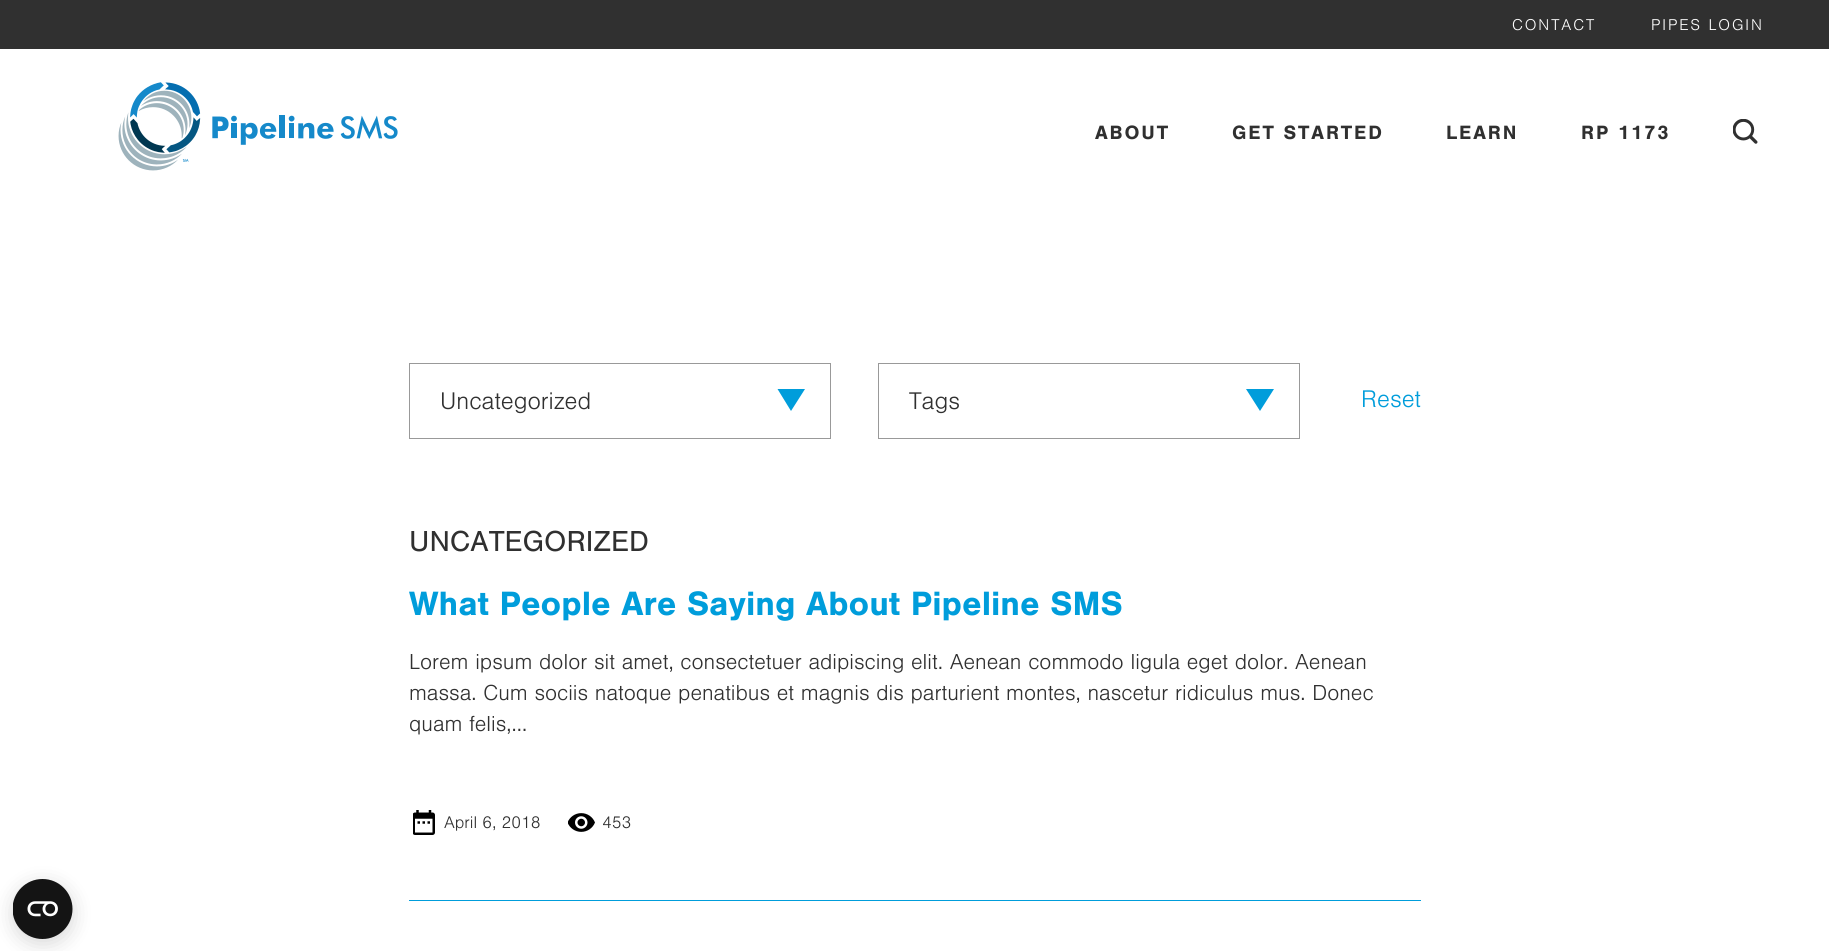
import math
import cairocffi as cairo

surface = cairo.ImageSurface(cairo.FORMAT_RGB24, 1829, 951)
cr = cairo.Context(surface)
options = cairo.FontOptions()
options.set_hint_metrics(cairo.HINT_METRICS_OFF)
options.set_hint_style(cairo.HINT_STYLE_NONE)
cr.set_font_options(options)
cr.set_miter_limit(4)


def use_color(code):
    cr.set_source_rgb(*(v / 255 for v in bytes.fromhex(code[-6:])))


def spaced_text(x, y, s, letter, word):
    cr.move_to(x, y)
    for ch in s:
        cr.show_text(ch)
        cr.rel_move_to(letter + word * (ch == ' '), 0)


def round_rect(x, y, w, h, r):
    cr.new_sub_path()
    for i, (u, v) in enumerate([(x + w - r, y + h - r), (x + r, y + h - r), (x + r, y + r), (x + w - r, y + r)]):
        cr.arc(u, v, r, i * math.pi / 2, (i + 1) * math.pi / 2)
    cr.close_path()


def shadow(x, y, w, h, r, blur, alpha):
    cr.push_group_with_content(cairo.CONTENT_ALPHA)
    cr.set_operator(cairo.OPERATOR_SOURCE)
    for i in range(15, -16, -2):
        e = blur * i / 6
        if min(w, h) + 2 * e > 0:
            cr.set_source_rgba(0, 0, 0, alpha * math.erfc((i - 1) / 8.5) / 2)
            round_rect(x - e, y - e, w + 2 * e, h + 2 * e, max(0, min(r + e + blur * .6, min(w, h) / 2 + e)))
            cr.fill()
    cr.mask(cr.pop_group())


def picture(path, x, y, w, h):
    cr.save()
    cr.set_source_surface(cairo.ImageSurface.create_from_png(path), x, y)
    cr.rectangle(x, y, w, h)
    cr.fill()
    cr.restore()


use_color("#ffffff")
cr.paint()
use_color("#303030")
cr.rectangle(0, 0, 1829, 49)
cr.fill()
cr.select_font_face("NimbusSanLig")
cr.set_font_size(16.25)
use_color("#ffffff")
spaced_text(1512, 30, "CONTACT", 1.9, 0)
spaced_text(1651, 30, "PIPES LOGIN", 1.9, 0)
picture("img1.png", 118, 82, 280, 89)
cr.select_font_face("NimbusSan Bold", cairo.FONT_SLANT_NORMAL, cairo.FONT_WEIGHT_BOLD)
cr.set_font_size(20)
use_color("#303030")
spaced_text(1095, 139, "ABOUT", 1.9, 0)
spaced_text(1232, 139, "GET STARTED", 1.9, 0)
spaced_text(1446, 139, "LEARN", 1.9, 0)
spaced_text(1581, 139, "RP 1173", 1.9, 0)
picture("img2.png", 1733, 119, 25, 25)
cr.rectangle(409.5, 363.5, 421, 75)
use_color("#999999")
cr.set_line_width(1)
cr.stroke()
cr.select_font_face("NimbusSanLig")
cr.set_font_size(25)
use_color("#303030")
cr.move_to(440, 409)
cr.show_text("Uncategorized")
use_color("#009ddb")
cr.new_path()
cr.move_to(777.5, 389)
cr.line_to(805, 389)
cr.line_to(791, 411)
cr.close_path()
cr.fill()
cr.rectangle(878.5, 363.5, 421, 75)
use_color("#999999")
cr.stroke()
use_color("#303030")
cr.move_to(909, 409)
cr.show_text("Tags")
use_color("#009ddb")
cr.new_path()
cr.move_to(1246, 389)
cr.line_to(1274, 389)
cr.line_to(1260, 411)
cr.close_path()
cr.fill()
cr.move_to(1361, 407)
cr.show_text("Reset")
cr.rectangle(409, 900, 1012, 1)
cr.fill()
cr.select_font_face("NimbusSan")
cr.set_font_size(30)
use_color("#303030")
cr.move_to(409, 551)
cr.show_text("UNCATEGORIZED")
cr.select_font_face("NimbusSan Bold", cairo.FONT_SLANT_NORMAL, cairo.FONT_WEIGHT_BOLD)
cr.set_font_size(35)
use_color("#009ddb")
cr.move_to(409, 615)
cr.show_text("What People Are Saying About Pipeline SMS")
cr.select_font_face("NimbusSanLig")
cr.set_font_size(22.5)
use_color("#303030")
cr.move_to(409, 669)
cr.show_text("Lorem ipsum dolor sit amet, consectetuer adipiscing elit. Aenean commodo ligula eget dolor. Aenean")
cr.move_to(409, 700)
cr.show_text("massa. Cum sociis natoque penatibus et magnis dis parturient montes, nascetur ridiculus mus. Donec")
cr.move_to(409, 731)
cr.show_text("quam felis,…")
picture("img3.png", 413, 810, 22, 25)
cr.set_font_size(17.5)
cr.move_to(444, 828)
cr.show_text("April 6, 2018")
picture("img4.png", 568, 813, 27, 19)
cr.move_to(602, 828)
cr.show_text("453")
use_color("#000000")
shadow(13, 884, 60, 60, 30, 10, 0.15)
picture("img5.png", 13, 879, 60, 60)
surface.write_to_png("result.png")
